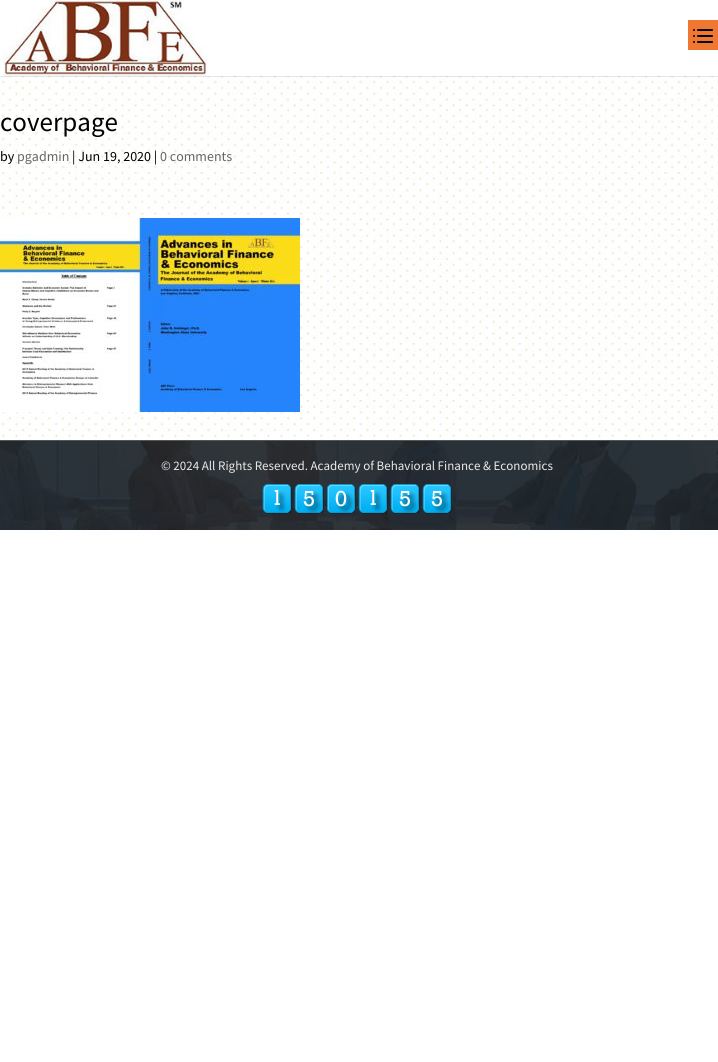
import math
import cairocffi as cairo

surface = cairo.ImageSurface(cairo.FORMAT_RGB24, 718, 1062)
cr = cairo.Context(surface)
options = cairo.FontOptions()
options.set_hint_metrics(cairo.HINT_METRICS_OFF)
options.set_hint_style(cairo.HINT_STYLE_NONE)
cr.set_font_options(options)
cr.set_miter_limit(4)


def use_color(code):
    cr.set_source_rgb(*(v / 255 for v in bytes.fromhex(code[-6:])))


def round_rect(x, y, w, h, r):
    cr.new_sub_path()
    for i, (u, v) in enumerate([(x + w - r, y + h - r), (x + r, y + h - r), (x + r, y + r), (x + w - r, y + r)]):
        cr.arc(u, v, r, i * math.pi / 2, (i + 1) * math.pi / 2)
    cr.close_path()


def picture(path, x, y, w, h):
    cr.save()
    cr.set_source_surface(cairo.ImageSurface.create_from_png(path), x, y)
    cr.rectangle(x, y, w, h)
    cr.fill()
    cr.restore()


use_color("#ffffff")
cr.paint()
picture("img2.png", 0, 76, 718, 364)
cr.set_source_rgba(0, 0, 0, 0.1)
cr.rectangle(0, 76, 718, 1)
cr.fill()
picture("img1.png", 3, 0, 204, 76)
use_color("#f07732")
cr.rectangle(688, 20, 30, 30)
cr.fill()
use_color("#000000")
cr.arc(694, 30, 1, 0, 2 * math.pi)
cr.fill()
round_rect(697, 29, 16, 2, 1)
cr.fill()
cr.arc(694, 36, 1, 0, 2 * math.pi)
cr.fill()
round_rect(697, 35, 16, 2, 1)
cr.fill()
cr.arc(694, 42, 1, 0, 2 * math.pi)
cr.fill()
round_rect(697, 41, 16, 2, 1)
cr.fill()
cr.select_font_face("Source Sans Pro")
cr.set_font_size(27)
cr.move_to(0, 131)
cr.show_text("coverpage")
cr.set_font_size(14)
cr.move_to(0, 161)
cr.show_text("by")
use_color("#666666")
cr.move_to(17, 161)
cr.show_text("pgadmin")
use_color("#000000")
cr.move_to(72, 161)
cr.show_text("| Jun 19, 2020 |")
use_color("#666666")
cr.move_to(160, 161)
cr.show_text("0 comments")
picture("img3.png", 0, 218, 300, 194)
picture("img4.png", 0, 441, 718, 89)
use_color("#525858")
cr.rectangle(0, 440, 718, 1)
cr.fill()
cr.set_font_size(13)
use_color("#e9e9e9")
cr.move_to(161, 470)
cr.show_text("© 2024 All Rights Reserved. Academy of Behavioral Finance & Economics")
picture("img5.png", 262, 484, 190, 30)
surface.write_to_png("result.png")
